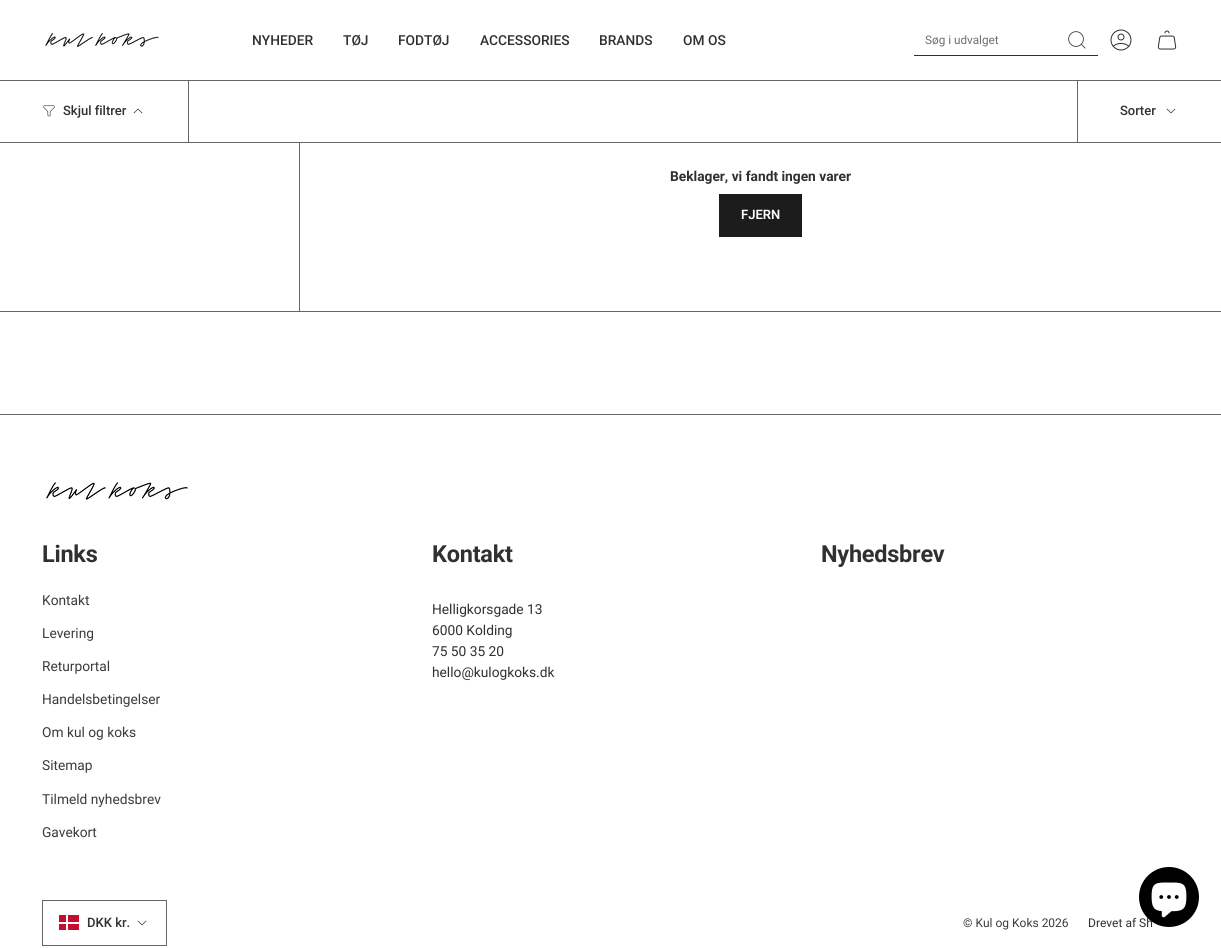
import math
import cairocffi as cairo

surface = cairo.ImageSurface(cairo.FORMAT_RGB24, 1221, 948)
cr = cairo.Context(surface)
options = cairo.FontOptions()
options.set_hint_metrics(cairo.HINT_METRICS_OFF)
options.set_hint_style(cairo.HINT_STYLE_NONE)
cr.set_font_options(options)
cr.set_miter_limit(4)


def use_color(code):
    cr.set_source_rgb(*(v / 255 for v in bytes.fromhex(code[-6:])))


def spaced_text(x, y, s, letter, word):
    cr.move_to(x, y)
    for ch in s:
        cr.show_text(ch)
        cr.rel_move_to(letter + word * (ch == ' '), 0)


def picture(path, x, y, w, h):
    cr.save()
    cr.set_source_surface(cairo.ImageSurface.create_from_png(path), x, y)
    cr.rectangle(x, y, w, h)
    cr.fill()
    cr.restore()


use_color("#ffffff")
cr.paint()
picture("img1.png", 45, 33, 114, 14)
cr.select_font_face("Roboto Medium")
cr.set_font_size(13.75)
use_color("#303030")
cr.move_to(252, 45)
cr.show_text("NYHEDER")
cr.move_to(343, 45)
cr.show_text("TØJ")
cr.move_to(398, 45)
cr.show_text("FODTØJ")
cr.move_to(480, 45)
cr.show_text("ACCESSORIES")
cr.move_to(599, 45)
cr.show_text("BRANDS")
cr.move_to(683, 45)
cr.show_text("OM OS")
cr.rectangle(914, 55, 184, 1)
cr.fill()
cr.select_font_face("Roboto")
cr.set_font_size(11.75)
use_color("#6e6e6e")
cr.move_to(925, 44)
cr.show_text("Søg i udvalget")
picture("img2.png", 1068, 31, 18, 18)
picture("img3.png", 1110, 29, 22, 22)
picture("img4.png", 1157, 30, 20, 20)
use_color("#666666")
cr.rectangle(188, 80, 1, 62)
cr.fill()
cr.rectangle(1077, 80, 1, 62)
cr.fill()
cr.rectangle(0, 80, 1221, 1)
cr.fill()
cr.rectangle(0, 142, 1221, 1)
cr.fill()
picture("img5.png", 43, 105, 12, 12)
cr.select_font_face("Roboto Medium")
cr.set_font_size(13)
use_color("#303030")
cr.move_to(63, 115)
cr.show_text("Skjul filtrer")
cr.new_path()
cr.move_to(134, 113)
cr.line_to(138, 109)
cr.line_to(142, 113)
cr.set_line_width(0.7)
cr.set_line_cap(cairo.LINE_CAP_ROUND)
cr.set_line_join(cairo.LINE_JOIN_ROUND)
cr.stroke()
cr.move_to(1120, 115)
cr.show_text("Sorter")
cr.new_path()
cr.move_to(1167, 109)
cr.line_to(1171, 113)
cr.line_to(1175, 109)
cr.stroke()
use_color("#666666")
cr.rectangle(0, 311, 1221, 1)
cr.fill()
cr.rectangle(299, 143, 1, 168)
cr.fill()
cr.select_font_face("Roboto", cairo.FONT_SLANT_NORMAL, cairo.FONT_WEIGHT_BOLD)
cr.set_font_size(13.75)
use_color("#303030")
cr.move_to(670, 181)
cr.show_text("Beklager, vi fandt ingen varer")
use_color("#1c1c1c")
cr.rectangle(719, 194, 83, 43)
cr.fill()
cr.select_font_face("Roboto SemiBold")
cr.set_font_size(13)
use_color("#ffffff")
cr.move_to(741, 219)
cr.show_text("FJERN")
use_color("#666666")
cr.rectangle(0, 414, 1221, 1)
cr.fill()
picture("img6.png", 46, 482, 142, 18)
cr.select_font_face("Roboto", cairo.FONT_SLANT_NORMAL, cairo.FONT_WEIGHT_BOLD)
cr.set_font_size(23.5)
use_color("#303030")
spaced_text(42, 562, "Links", -0.25, 0)
cr.select_font_face("Roboto")
cr.set_font_size(13.75)
use_color("#3b3b3b")
cr.move_to(42, 605)
cr.show_text("Kontakt")
cr.move_to(42, 638)
cr.show_text("Levering")
cr.move_to(42, 671)
cr.show_text("Returportal")
cr.move_to(42, 704)
cr.show_text("Handelsbetingelser")
cr.move_to(42, 737)
cr.show_text("Om kul og koks")
cr.move_to(42, 770)
cr.show_text("Sitemap")
cr.move_to(42, 804)
cr.show_text("Tilmeld nyhedsbrev")
cr.move_to(42, 837)
cr.show_text("Gavekort")
cr.select_font_face("Roboto", cairo.FONT_SLANT_NORMAL, cairo.FONT_WEIGHT_BOLD)
cr.set_font_size(23.5)
use_color("#303030")
spaced_text(432, 562, "Kontakt", -0.25, 0)
cr.select_font_face("Roboto")
cr.set_font_size(13.75)
cr.move_to(432, 614)
cr.show_text("Helligkorsgade 13")
cr.move_to(432, 635)
cr.show_text("6000 Kolding")
cr.move_to(432, 656)
cr.show_text("75 50 35 20")
cr.move_to(432, 677)
cr.show_text("hello@kulogkoks.dk")
cr.select_font_face("Roboto", cairo.FONT_SLANT_NORMAL, cairo.FONT_WEIGHT_BOLD)
cr.set_font_size(23.5)
spaced_text(821, 562, "Nyhedsbrev", -0.25, 0)
cr.rectangle(42.5, 900.5, 124, 45)
use_color("#666666")
cr.set_line_width(1)
cr.set_line_cap(cairo.LINE_CAP_BUTT)
cr.set_line_join(cairo.LINE_JOIN_MITER)
cr.stroke()
use_color("#c60c30")
cr.rectangle(59, 915, 20, 15)
cr.fill()
use_color("#ffffff")
cr.rectangle(66, 915, 2, 15)
cr.fill()
cr.rectangle(59, 922, 20, 2)
cr.fill()
cr.select_font_face("Roboto Medium")
cr.set_font_size(13)
use_color("#303030")
cr.move_to(87, 927)
cr.show_text("DKK kr.")
cr.new_path()
cr.move_to(138, 921)
cr.line_to(142, 925)
cr.line_to(146, 921)
cr.set_line_width(0.7)
cr.set_line_cap(cairo.LINE_CAP_ROUND)
cr.set_line_join(cairo.LINE_JOIN_ROUND)
cr.stroke()
cr.select_font_face("Roboto")
cr.set_font_size(12)
use_color("#3b3b3b")
cr.move_to(963, 927)
cr.show_text("© Kul og Koks 2026")
use_color("#303030")
cr.move_to(1088, 927)
cr.show_text("Drevet af Sh")
use_color("#000000")
cr.new_path()
cr.arc(1169, 897, 30, 0, 2 * math.pi)
cr.fill()
picture("img7.png", 1151, 882, 36, 36)
surface.write_to_png("result.png")
